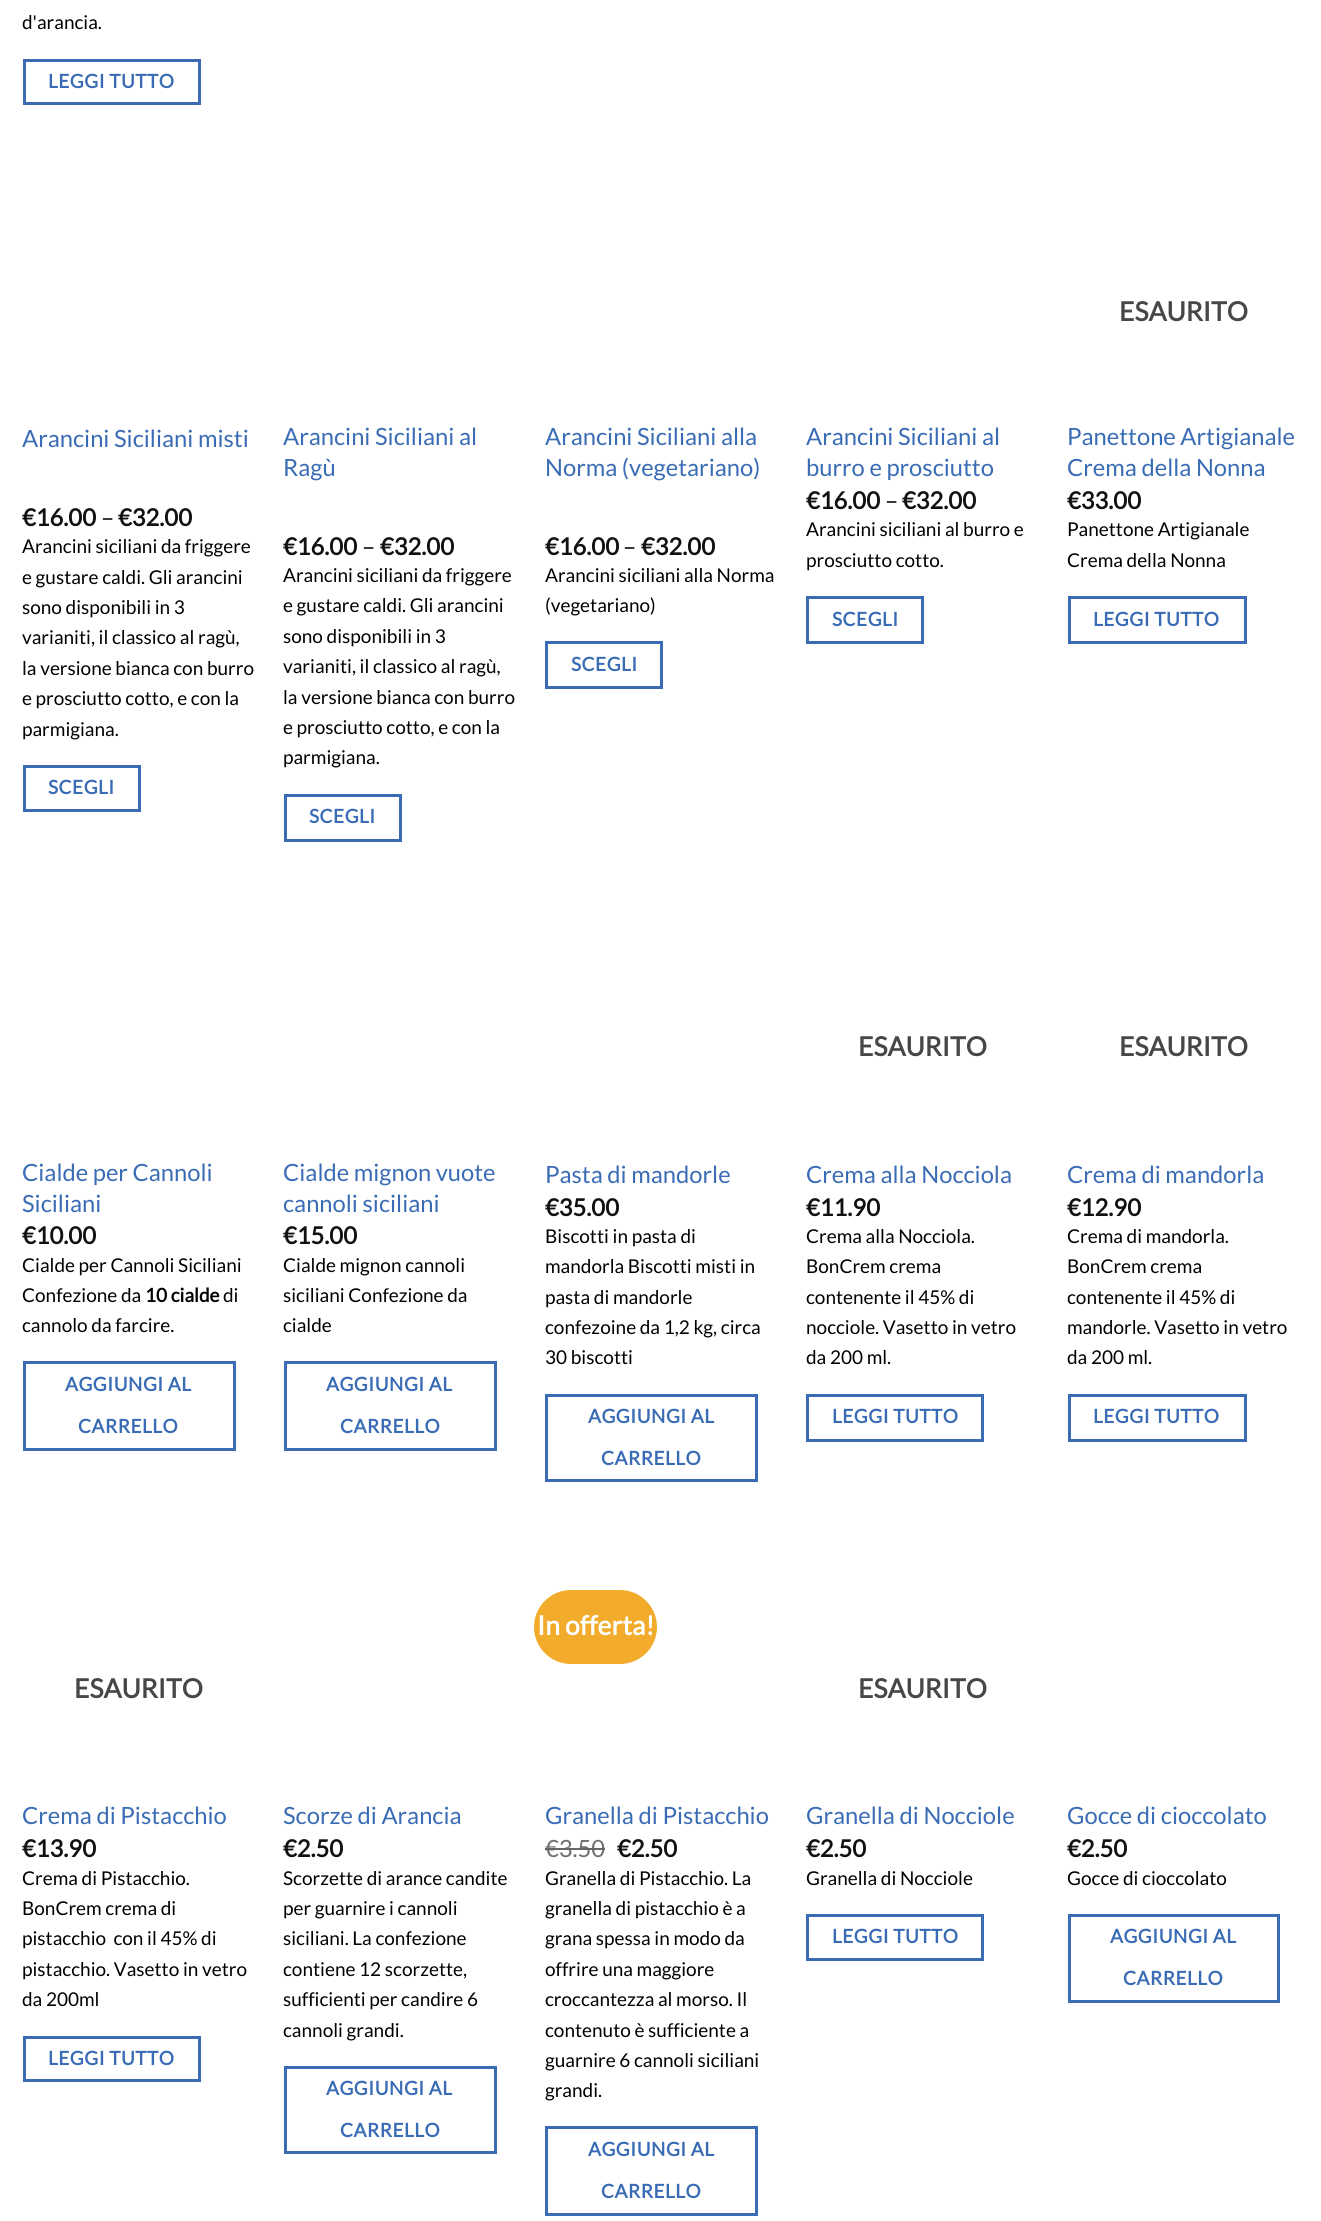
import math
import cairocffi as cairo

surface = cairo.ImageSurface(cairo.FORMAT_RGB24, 1321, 2221)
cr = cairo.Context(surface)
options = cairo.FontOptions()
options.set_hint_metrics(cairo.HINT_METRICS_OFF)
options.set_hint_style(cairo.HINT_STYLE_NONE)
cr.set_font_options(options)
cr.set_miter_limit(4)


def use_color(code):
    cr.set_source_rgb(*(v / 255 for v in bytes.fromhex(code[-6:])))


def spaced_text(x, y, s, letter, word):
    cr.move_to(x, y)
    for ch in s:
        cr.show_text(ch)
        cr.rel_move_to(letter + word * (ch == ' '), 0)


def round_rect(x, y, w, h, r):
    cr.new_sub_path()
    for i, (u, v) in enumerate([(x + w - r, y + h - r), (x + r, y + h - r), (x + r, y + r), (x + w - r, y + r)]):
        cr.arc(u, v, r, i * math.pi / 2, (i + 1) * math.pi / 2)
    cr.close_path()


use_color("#ffffff")
cr.paint()
cr.select_font_face("Lato")
cr.set_font_size(19)
use_color("#000000")
cr.move_to(22, 29)
cr.show_text("d'arancia.")
cr.rectangle(24.5, 60.5, 175, 43)
use_color("#3a6cb5")
cr.set_line_width(3)
cr.stroke()
cr.select_font_face("Lato", cairo.FONT_SLANT_NORMAL, cairo.FONT_WEIGHT_BOLD)
spaced_text(48, 88, "LEGGI TUTTO", 0.5, 0)
cr.select_font_face("Lato")
cr.set_font_size(23.75)
cr.move_to(22, 447)
cr.show_text("Arancini Siciliani misti")
cr.select_font_face("Lato", cairo.FONT_SLANT_NORMAL, cairo.FONT_WEIGHT_BOLD)
use_color("#111111")
cr.move_to(22, 526)
cr.show_text("€16.00")
cr.select_font_face("Lato")
use_color("#000000")
cr.move_to(101, 526)
cr.show_text("–")
cr.select_font_face("Lato", cairo.FONT_SLANT_NORMAL, cairo.FONT_WEIGHT_BOLD)
use_color("#111111")
cr.move_to(118, 526)
cr.show_text("€32.00")
cr.select_font_face("Lato")
cr.set_font_size(19)
use_color("#000000")
cr.move_to(22, 553)
cr.show_text("Arancini siciliani da friggere")
cr.move_to(22, 584)
cr.show_text("e gustare caldi. Gli arancini")
cr.move_to(22, 614)
cr.show_text("sono disponibili in 3")
cr.move_to(22, 644)
cr.show_text("varianiti, il classico al ragù,")
cr.move_to(22, 675)
cr.show_text("la versione bianca con burro")
cr.move_to(22, 705)
cr.show_text("e prosciutto cotto, e con la")
cr.move_to(22, 736)
cr.show_text("parmigiana.")
cr.rectangle(24.5, 766.5, 115, 44)
use_color("#3a6cb5")
cr.stroke()
cr.select_font_face("Lato", cairo.FONT_SLANT_NORMAL, cairo.FONT_WEIGHT_BOLD)
spaced_text(48, 794, "SCEGLI", 0.5, 0)
cr.select_font_face("Lato")
cr.set_font_size(23.75)
cr.move_to(283, 445)
cr.show_text("Arancini Siciliani al")
cr.move_to(283, 476)
cr.show_text("Ragù")
cr.select_font_face("Lato", cairo.FONT_SLANT_NORMAL, cairo.FONT_WEIGHT_BOLD)
use_color("#111111")
cr.move_to(283, 555)
cr.show_text("€16.00")
cr.select_font_face("Lato")
use_color("#000000")
cr.move_to(362, 555)
cr.show_text("–")
cr.select_font_face("Lato", cairo.FONT_SLANT_NORMAL, cairo.FONT_WEIGHT_BOLD)
use_color("#111111")
cr.move_to(380, 555)
cr.show_text("€32.00")
cr.select_font_face("Lato")
cr.set_font_size(19)
use_color("#000000")
cr.move_to(283, 582)
cr.show_text("Arancini siciliani da friggere")
cr.move_to(283, 612)
cr.show_text("e gustare caldi. Gli arancini")
cr.move_to(283, 643)
cr.show_text("sono disponibili in 3")
cr.move_to(283, 673)
cr.show_text("varianiti, il classico al ragù,")
cr.move_to(283, 704)
cr.show_text("la versione bianca con burro")
cr.move_to(283, 734)
cr.show_text("e prosciutto cotto, e con la")
cr.move_to(283, 764)
cr.show_text("parmigiana.")
cr.rectangle(285.5, 795.5, 115, 45)
use_color("#3a6cb5")
cr.stroke()
cr.select_font_face("Lato", cairo.FONT_SLANT_NORMAL, cairo.FONT_WEIGHT_BOLD)
spaced_text(309, 823, "SCEGLI", 0.5, 0)
cr.select_font_face("Lato")
cr.set_font_size(23.75)
cr.move_to(545, 445)
cr.show_text("Arancini Siciliani alla")
cr.move_to(545, 476)
cr.show_text("Norma (vegetariano)")
cr.select_font_face("Lato", cairo.FONT_SLANT_NORMAL, cairo.FONT_WEIGHT_BOLD)
use_color("#111111")
cr.move_to(545, 555)
cr.show_text("€16.00")
cr.select_font_face("Lato")
use_color("#000000")
cr.move_to(623, 555)
cr.show_text("–")
cr.select_font_face("Lato", cairo.FONT_SLANT_NORMAL, cairo.FONT_WEIGHT_BOLD)
use_color("#111111")
cr.move_to(641, 555)
cr.show_text("€32.00")
cr.select_font_face("Lato")
cr.set_font_size(19)
use_color("#000000")
cr.move_to(545, 582)
cr.show_text("Arancini siciliani alla Norma")
cr.move_to(545, 612)
cr.show_text("(vegetariano)")
cr.rectangle(546.5, 642.5, 115, 45)
use_color("#3a6cb5")
cr.stroke()
cr.select_font_face("Lato", cairo.FONT_SLANT_NORMAL, cairo.FONT_WEIGHT_BOLD)
spaced_text(571, 671, "SCEGLI", 0.5, 0)
cr.select_font_face("Lato")
cr.set_font_size(23.75)
cr.move_to(806, 445)
cr.show_text("Arancini Siciliani al")
cr.move_to(806, 476)
cr.show_text("burro e prosciutto")
cr.select_font_face("Lato", cairo.FONT_SLANT_NORMAL, cairo.FONT_WEIGHT_BOLD)
use_color("#111111")
cr.move_to(806, 509)
cr.show_text("€16.00")
cr.select_font_face("Lato")
use_color("#000000")
cr.move_to(885, 509)
cr.show_text("–")
cr.select_font_face("Lato", cairo.FONT_SLANT_NORMAL, cairo.FONT_WEIGHT_BOLD)
use_color("#111111")
cr.move_to(902, 509)
cr.show_text("€32.00")
cr.select_font_face("Lato")
cr.set_font_size(19)
use_color("#000000")
cr.move_to(806, 536)
cr.show_text("Arancini siciliani al burro e")
cr.move_to(806, 567)
cr.show_text("prosciutto cotto.")
cr.rectangle(807.5, 597.5, 115, 45)
use_color("#3a6cb5")
cr.stroke()
cr.select_font_face("Lato", cairo.FONT_SLANT_NORMAL, cairo.FONT_WEIGHT_BOLD)
spaced_text(832, 626, "SCEGLI", 0.5, 0)
cr.set_font_size(26.5)
use_color("#474747")
cr.move_to(1119, 321)
cr.show_text("ESAURITO")
cr.select_font_face("Lato")
cr.set_font_size(23.75)
use_color("#3a6cb5")
cr.move_to(1067, 445)
cr.show_text("Panettone Artigianale")
cr.move_to(1067, 476)
cr.show_text("Crema della Nonna")
cr.select_font_face("Lato", cairo.FONT_SLANT_NORMAL, cairo.FONT_WEIGHT_BOLD)
use_color("#111111")
cr.move_to(1067, 509)
cr.show_text("€33.00")
cr.select_font_face("Lato")
cr.set_font_size(19)
use_color("#000000")
cr.move_to(1067, 536)
cr.show_text("Panettone Artigianale")
cr.move_to(1067, 567)
cr.show_text("Crema della Nonna")
cr.rectangle(1069.5, 597.5, 176, 45)
use_color("#3a6cb5")
cr.stroke()
cr.select_font_face("Lato", cairo.FONT_SLANT_NORMAL, cairo.FONT_WEIGHT_BOLD)
spaced_text(1093, 626, "LEGGI TUTTO", 0.5, 0)
cr.select_font_face("Lato")
cr.set_font_size(23.75)
cr.move_to(22, 1181)
cr.show_text("Cialde per Cannoli")
cr.move_to(22, 1212)
cr.show_text("Siciliani")
cr.select_font_face("Lato", cairo.FONT_SLANT_NORMAL, cairo.FONT_WEIGHT_BOLD)
use_color("#111111")
cr.move_to(22, 1244)
cr.show_text("€10.00")
cr.select_font_face("Lato")
cr.set_font_size(19)
use_color("#000000")
cr.move_to(22, 1272)
cr.show_text("Cialde per Cannoli Siciliani")
cr.move_to(22, 1302)
cr.show_text("Confezione da")
cr.select_font_face("Lato", cairo.FONT_SLANT_NORMAL, cairo.FONT_WEIGHT_BOLD)
cr.move_to(145, 1302)
cr.show_text("10 cialde")
cr.select_font_face("Lato")
cr.move_to(223, 1302)
cr.show_text("di")
cr.move_to(22, 1332)
cr.show_text("cannolo da farcire.")
cr.rectangle(24.5, 1362.5, 210, 87)
use_color("#3a6cb5")
cr.stroke()
cr.select_font_face("Lato", cairo.FONT_SLANT_NORMAL, cairo.FONT_WEIGHT_BOLD)
spaced_text(65, 1391, "AGGIUNGI AL", 0.5, 0)
spaced_text(78, 1433, "CARRELLO", 0.5, 0)
cr.select_font_face("Lato")
cr.set_font_size(23.75)
cr.move_to(283, 1181)
cr.show_text("Cialde mignon vuote")
cr.move_to(283, 1212)
cr.show_text("cannoli siciliani")
cr.select_font_face("Lato", cairo.FONT_SLANT_NORMAL, cairo.FONT_WEIGHT_BOLD)
use_color("#111111")
cr.move_to(283, 1244)
cr.show_text("€15.00")
cr.select_font_face("Lato")
cr.set_font_size(19)
use_color("#000000")
cr.move_to(283, 1272)
cr.show_text("Cialde mignon cannoli")
cr.move_to(283, 1302)
cr.show_text("siciliani Confezione da")
cr.move_to(283, 1332)
cr.show_text("cialde")
cr.rectangle(285.5, 1362.5, 210, 87)
use_color("#3a6cb5")
cr.stroke()
cr.select_font_face("Lato", cairo.FONT_SLANT_NORMAL, cairo.FONT_WEIGHT_BOLD)
spaced_text(326, 1391, "AGGIUNGI AL", 0.5, 0)
spaced_text(340, 1433, "CARRELLO", 0.5, 0)
cr.select_font_face("Lato")
cr.set_font_size(23.75)
cr.move_to(545, 1183)
cr.show_text("Pasta di mandorle")
cr.select_font_face("Lato", cairo.FONT_SLANT_NORMAL, cairo.FONT_WEIGHT_BOLD)
use_color("#111111")
cr.move_to(545, 1216)
cr.show_text("€35.00")
cr.select_font_face("Lato")
cr.set_font_size(19)
use_color("#000000")
cr.move_to(545, 1243)
cr.show_text("Biscotti in pasta di")
cr.move_to(545, 1273)
cr.show_text("mandorla Biscotti misti in")
cr.move_to(545, 1304)
cr.show_text("pasta di mandorle")
cr.move_to(545, 1334)
cr.show_text("confezoine da 1,2 kg, circa")
cr.move_to(545, 1364)
cr.show_text("30 biscotti")
cr.rectangle(546.5, 1395.5, 210, 85)
use_color("#3a6cb5")
cr.stroke()
cr.select_font_face("Lato", cairo.FONT_SLANT_NORMAL, cairo.FONT_WEIGHT_BOLD)
spaced_text(588, 1423, "AGGIUNGI AL", 0.5, 0)
spaced_text(601, 1465, "CARRELLO", 0.5, 0)
cr.set_font_size(26.5)
use_color("#474747")
cr.move_to(858, 1056)
cr.show_text("ESAURITO")
cr.select_font_face("Lato")
cr.set_font_size(23.75)
use_color("#3a6cb5")
cr.move_to(806, 1183)
cr.show_text("Crema alla Nocciola")
cr.select_font_face("Lato", cairo.FONT_SLANT_NORMAL, cairo.FONT_WEIGHT_BOLD)
use_color("#111111")
cr.move_to(806, 1216)
cr.show_text("€11.90")
cr.select_font_face("Lato")
cr.set_font_size(19)
use_color("#000000")
cr.move_to(806, 1243)
cr.show_text("Crema alla Nocciola.")
cr.move_to(806, 1273)
cr.show_text("BonCrem crema")
cr.move_to(806, 1304)
cr.show_text("contenente il 45% di")
cr.move_to(806, 1334)
cr.show_text("nocciole. Vasetto in vetro")
cr.move_to(806, 1364)
cr.show_text("da 200 ml.")
cr.rectangle(807.5, 1395.5, 175, 45)
use_color("#3a6cb5")
cr.stroke()
cr.select_font_face("Lato", cairo.FONT_SLANT_NORMAL, cairo.FONT_WEIGHT_BOLD)
spaced_text(832, 1423, "LEGGI TUTTO", 0.5, 0)
cr.set_font_size(26.5)
use_color("#474747")
cr.move_to(1119, 1056)
cr.show_text("ESAURITO")
cr.select_font_face("Lato")
cr.set_font_size(23.75)
use_color("#3a6cb5")
cr.move_to(1067, 1183)
cr.show_text("Crema di mandorla")
cr.select_font_face("Lato", cairo.FONT_SLANT_NORMAL, cairo.FONT_WEIGHT_BOLD)
use_color("#111111")
cr.move_to(1067, 1216)
cr.show_text("€12.90")
cr.select_font_face("Lato")
cr.set_font_size(19)
use_color("#000000")
cr.move_to(1067, 1243)
cr.show_text("Crema di mandorla.")
cr.move_to(1067, 1273)
cr.show_text("BonCrem crema")
cr.move_to(1067, 1304)
cr.show_text("contenente il 45% di")
cr.move_to(1067, 1334)
cr.show_text("mandorle. Vasetto in vetro")
cr.move_to(1067, 1364)
cr.show_text("da 200 ml.")
cr.rectangle(1069.5, 1395.5, 176, 45)
use_color("#3a6cb5")
cr.stroke()
cr.select_font_face("Lato", cairo.FONT_SLANT_NORMAL, cairo.FONT_WEIGHT_BOLD)
spaced_text(1093, 1423, "LEGGI TUTTO", 0.5, 0)
cr.set_font_size(26.5)
use_color("#474747")
cr.move_to(74, 1698)
cr.show_text("ESAURITO")
cr.select_font_face("Lato")
cr.set_font_size(23.75)
use_color("#3a6cb5")
cr.move_to(22, 1824)
cr.show_text("Crema di Pistacchio")
cr.select_font_face("Lato", cairo.FONT_SLANT_NORMAL, cairo.FONT_WEIGHT_BOLD)
use_color("#111111")
cr.move_to(22, 1857)
cr.show_text("€13.90")
cr.select_font_face("Lato")
cr.set_font_size(19)
use_color("#000000")
cr.move_to(22, 1885)
cr.show_text("Crema di Pistacchio.")
cr.move_to(22, 1915)
cr.show_text("BonCrem crema di")
cr.move_to(22, 1945)
cr.show_text("pistacchio  con il 45% di")
cr.move_to(22, 1976)
cr.show_text("pistacchio. Vasetto in vetro")
cr.move_to(22, 2006)
cr.show_text("da 200ml")
cr.rectangle(24.5, 2037.5, 175, 43)
use_color("#3a6cb5")
cr.stroke()
cr.select_font_face("Lato", cairo.FONT_SLANT_NORMAL, cairo.FONT_WEIGHT_BOLD)
spaced_text(48, 2065, "LEGGI TUTTO", 0.5, 0)
cr.select_font_face("Lato")
cr.set_font_size(23.75)
cr.move_to(283, 1824)
cr.show_text("Scorze di Arancia")
cr.select_font_face("Lato", cairo.FONT_SLANT_NORMAL, cairo.FONT_WEIGHT_BOLD)
use_color("#111111")
cr.move_to(283, 1857)
cr.show_text("€2.50")
cr.select_font_face("Lato")
cr.set_font_size(19)
use_color("#000000")
cr.move_to(283, 1885)
cr.show_text("Scorzette di arance candite")
cr.move_to(283, 1915)
cr.show_text("per guarnire i cannoli")
cr.move_to(283, 1945)
cr.show_text("siciliani. La confezione")
cr.move_to(283, 1976)
cr.show_text("contiene 12 scorzette,")
cr.move_to(283, 2006)
cr.show_text("sufficienti per candire 6")
cr.move_to(283, 2037)
cr.show_text("cannoli grandi.")
cr.rectangle(285.5, 2067.5, 210, 85)
use_color("#3a6cb5")
cr.stroke()
cr.select_font_face("Lato", cairo.FONT_SLANT_NORMAL, cairo.FONT_WEIGHT_BOLD)
spaced_text(326, 2095, "AGGIUNGI AL", 0.5, 0)
spaced_text(340, 2137, "CARRELLO", 0.5, 0)
use_color("#f2ab2b")
round_rect(534, 1590, 123, 74, 37)
cr.fill()
cr.set_font_size(26.5)
use_color("#ffffff")
cr.move_to(537, 1635)
cr.show_text("In offerta!")
cr.select_font_face("Lato")
cr.set_font_size(23.75)
use_color("#3a6cb5")
cr.move_to(545, 1824)
cr.show_text("Granella di Pistacchio")
use_color("#707070")
cr.move_to(545, 1857)
cr.show_text("€3.50")
use_color("#666666")
cr.rectangle(545, 1848, 60, 2)
cr.fill()
cr.select_font_face("Lato", cairo.FONT_SLANT_NORMAL, cairo.FONT_WEIGHT_BOLD)
use_color("#111111")
cr.move_to(617, 1857)
cr.show_text("€2.50")
cr.select_font_face("Lato")
cr.set_font_size(19)
use_color("#000000")
cr.move_to(545, 1885)
cr.show_text("Granella di Pistacchio. La")
cr.move_to(545, 1915)
cr.show_text("granella di pistacchio è a")
cr.move_to(545, 1945)
cr.show_text("grana spessa in modo da")
cr.move_to(545, 1976)
cr.show_text("offrire una maggiore")
cr.move_to(545, 2006)
cr.show_text("croccantezza al morso. Il")
cr.move_to(545, 2037)
cr.show_text("contenuto è sufficiente a")
cr.move_to(545, 2067)
cr.show_text("guarnire 6 cannoli siciliani")
cr.move_to(545, 2097)
cr.show_text("grandi.")
cr.rectangle(546.5, 2127.5, 210, 87)
use_color("#3a6cb5")
cr.stroke()
cr.select_font_face("Lato", cairo.FONT_SLANT_NORMAL, cairo.FONT_WEIGHT_BOLD)
spaced_text(588, 2156, "AGGIUNGI AL", 0.5, 0)
spaced_text(601, 2198, "CARRELLO", 0.5, 0)
cr.set_font_size(26.5)
use_color("#474747")
cr.move_to(858, 1698)
cr.show_text("ESAURITO")
cr.select_font_face("Lato")
cr.set_font_size(23.75)
use_color("#3a6cb5")
cr.move_to(806, 1824)
cr.show_text("Granella di Nocciole")
cr.select_font_face("Lato", cairo.FONT_SLANT_NORMAL, cairo.FONT_WEIGHT_BOLD)
use_color("#111111")
cr.move_to(806, 1857)
cr.show_text("€2.50")
cr.select_font_face("Lato")
cr.set_font_size(19)
use_color("#000000")
cr.move_to(806, 1885)
cr.show_text("Granella di Nocciole")
cr.rectangle(807.5, 1915.5, 175, 44)
use_color("#3a6cb5")
cr.stroke()
cr.select_font_face("Lato", cairo.FONT_SLANT_NORMAL, cairo.FONT_WEIGHT_BOLD)
spaced_text(832, 1943, "LEGGI TUTTO", 0.5, 0)
cr.select_font_face("Lato")
cr.set_font_size(23.75)
cr.move_to(1067, 1824)
cr.show_text("Gocce di cioccolato")
cr.select_font_face("Lato", cairo.FONT_SLANT_NORMAL, cairo.FONT_WEIGHT_BOLD)
use_color("#111111")
cr.move_to(1067, 1857)
cr.show_text("€2.50")
cr.select_font_face("Lato")
cr.set_font_size(19)
use_color("#000000")
cr.move_to(1067, 1885)
cr.show_text("Gocce di cioccolato")
cr.rectangle(1069.5, 1915.5, 209, 86)
use_color("#3a6cb5")
cr.stroke()
cr.select_font_face("Lato", cairo.FONT_SLANT_NORMAL, cairo.FONT_WEIGHT_BOLD)
spaced_text(1110, 1943, "AGGIUNGI AL", 0.5, 0)
spaced_text(1123, 1985, "CARRELLO", 0.5, 0)
surface.write_to_png("result.png")
